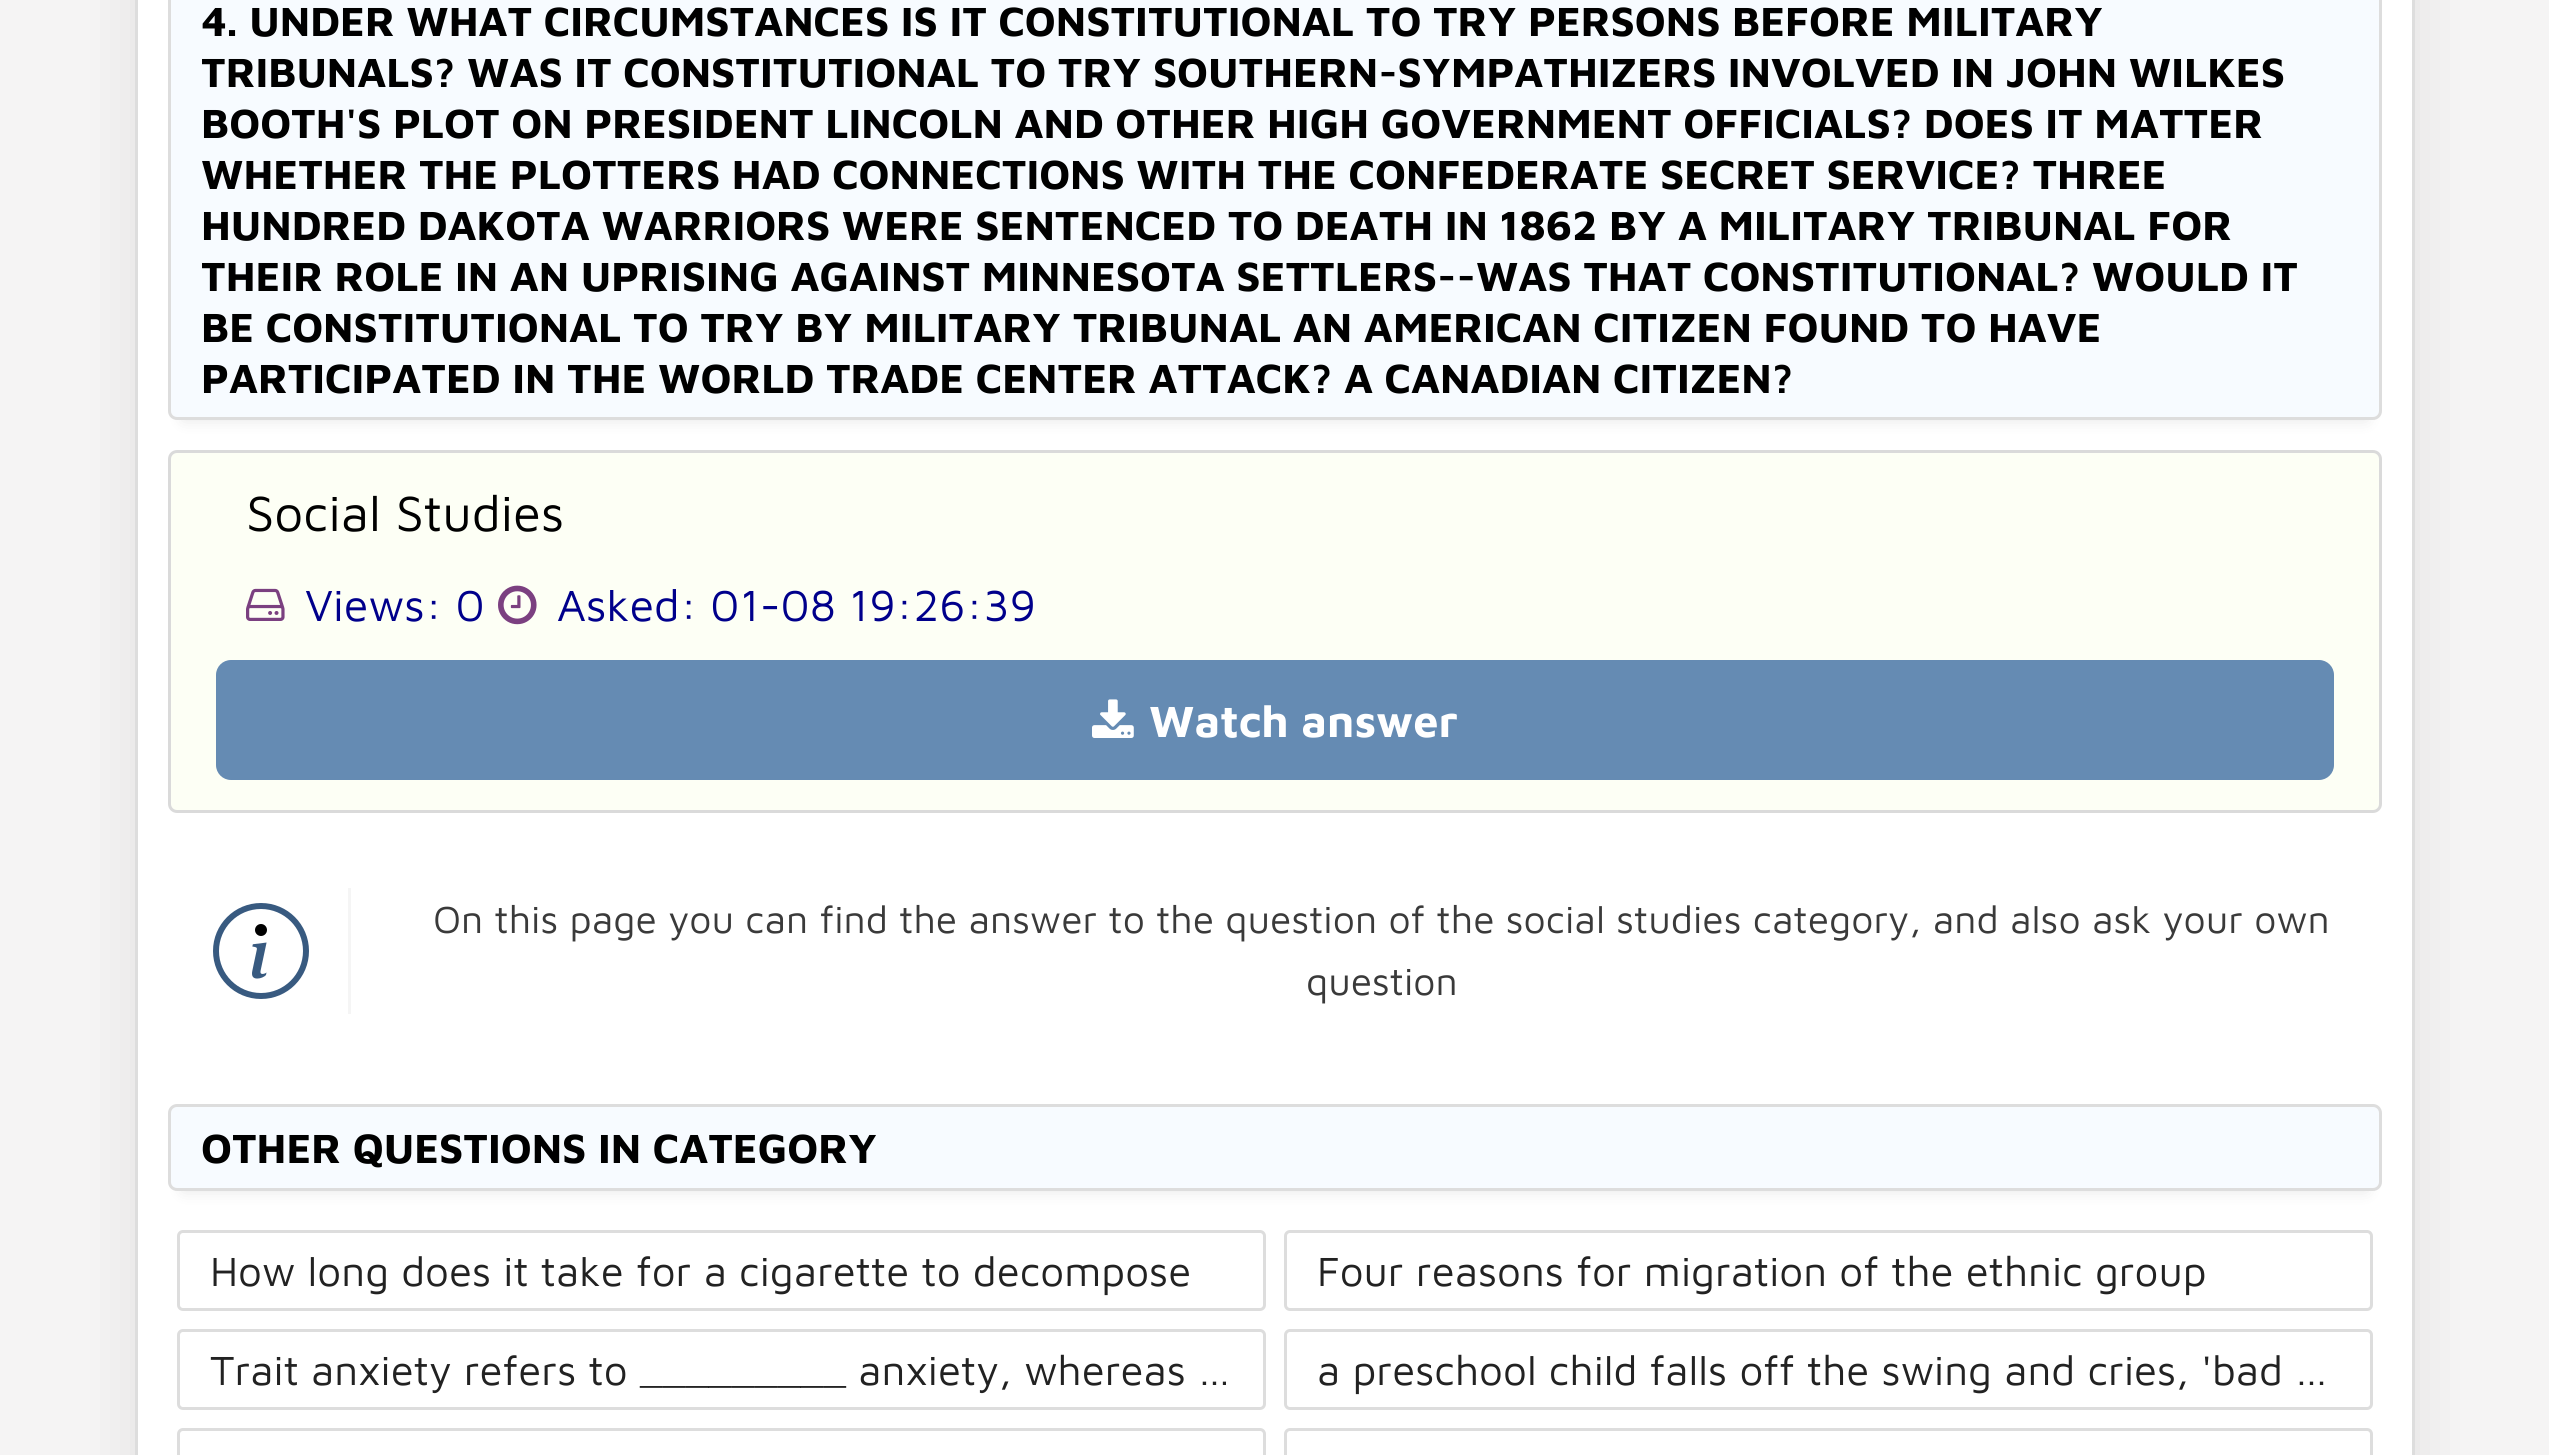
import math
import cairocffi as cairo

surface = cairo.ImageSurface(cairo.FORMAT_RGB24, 2549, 1455)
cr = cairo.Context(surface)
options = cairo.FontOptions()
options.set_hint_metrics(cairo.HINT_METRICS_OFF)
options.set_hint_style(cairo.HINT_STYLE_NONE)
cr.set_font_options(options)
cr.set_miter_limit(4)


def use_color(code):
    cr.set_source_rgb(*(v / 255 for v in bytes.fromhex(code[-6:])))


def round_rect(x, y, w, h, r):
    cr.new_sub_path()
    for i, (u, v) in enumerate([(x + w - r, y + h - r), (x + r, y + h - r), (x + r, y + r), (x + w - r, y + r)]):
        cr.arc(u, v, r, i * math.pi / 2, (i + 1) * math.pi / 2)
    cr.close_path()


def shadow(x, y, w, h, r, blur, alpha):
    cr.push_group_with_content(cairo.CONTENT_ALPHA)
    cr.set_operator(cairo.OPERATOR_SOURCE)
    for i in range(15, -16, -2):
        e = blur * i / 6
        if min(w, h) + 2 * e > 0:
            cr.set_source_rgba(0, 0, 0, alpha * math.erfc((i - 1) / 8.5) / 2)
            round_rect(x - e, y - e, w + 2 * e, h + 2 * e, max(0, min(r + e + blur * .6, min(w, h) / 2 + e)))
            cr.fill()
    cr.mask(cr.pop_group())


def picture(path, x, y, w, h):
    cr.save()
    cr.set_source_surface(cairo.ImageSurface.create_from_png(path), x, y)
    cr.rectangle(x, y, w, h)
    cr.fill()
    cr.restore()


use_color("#f5f4f4")
cr.paint()
use_color("#000000")
shadow(135, -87, 2280, 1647, 15, 30, 0.08)
use_color("#ffffff")
cr.rectangle(136.5, -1.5, 2277, 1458)
cr.fill_preserve()
use_color("#dddddd")
cr.set_line_width(3)
cr.stroke()
use_color("#000000")
shadow(183, 6, 2184, 414, 0, 7.5, 0.1)
use_color("#f7fbff")
round_rect(169.5, -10.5, 2211, 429, 7.5)
cr.fill_preserve()
use_color("#dddddd")
cr.stroke()
cr.select_font_face("Maven Pro", cairo.FONT_SLANT_NORMAL, cairo.FONT_WEIGHT_BOLD)
cr.set_font_size(42)
use_color("#000000")
cr.move_to(201, 36)
cr.show_text("4. UNDER WHAT CIRCUMSTANCES IS IT CONSTITUTIONAL TO TRY PERSONS BEFORE MILITARY")
cr.move_to(201, 87)
cr.show_text("TRIBUNALS? WAS IT CONSTITUTIONAL TO TRY SOUTHERN-SYMPATHIZERS INVOLVED IN JOHN WILKES")
cr.move_to(201, 138)
cr.show_text("BOOTH'S PLOT ON PRESIDENT LINCOLN AND OTHER HIGH GOVERNMENT OFFICIALS? DOES IT MATTER")
cr.move_to(201, 189)
cr.show_text("WHETHER THE PLOTTERS HAD CONNECTIONS WITH THE CONFEDERATE SECRET SERVICE? THREE")
cr.move_to(201, 240)
cr.show_text("HUNDRED DAKOTA WARRIORS WERE SENTENCED TO DEATH IN 1862 BY A MILITARY TRIBUNAL FOR")
cr.move_to(201, 291)
cr.show_text("THEIR ROLE IN AN UPRISING AGAINST MINNESOTA SETTLERS--WAS THAT CONSTITUTIONAL? WOULD IT")
cr.move_to(201, 342)
cr.show_text("BE CONSTITUTIONAL TO TRY BY MILITARY TRIBUNAL AN AMERICAN CITIZEN FOUND TO HAVE")
cr.move_to(201, 393)
cr.show_text("PARTICIPATED IN THE WORLD TRADE CENTER ATTACK? A CANADIAN CITIZEN?")
use_color("#fdfff5")
round_rect(169.5, 451.5, 2211, 360, 7.5)
cr.fill_preserve()
use_color("#dadada")
cr.stroke()
cr.select_font_face("Maven Pro")
cr.set_font_size(51)
use_color("#000000")
cr.move_to(246, 531)
cr.show_text("Social Studies")
picture("img1.png", 246, 588, 39, 33)
cr.set_font_size(45)
use_color("#00008b")
cr.move_to(305, 621)
cr.show_text("Views: 0")
picture("img2.png", 498, 585, 39, 40)
cr.move_to(557, 621)
cr.show_text("Asked: 01-08 19:26:39")
use_color("#658bb3")
round_rect(216, 660, 2118, 120, 15)
cr.fill()
picture("img3.png", 1092, 699, 42, 39)
cr.select_font_face("Maven Pro", cairo.FONT_SLANT_NORMAL, cairo.FONT_WEIGHT_BOLD)
use_color("#ffffff")
cr.move_to(1149, 737)
cr.show_text("Watch answer")
picture("img4.png", 213, 903, 96, 96)
use_color("#f5f5f5")
cr.rectangle(348, 888, 3, 126)
cr.fill()
cr.select_font_face("Maven Pro")
cr.set_font_size(39)
use_color("#3a3a3a")
cr.move_to(433, 933)
cr.show_text("On this page you can find the answer to the question of the social studies category, and also ask your own")
cr.move_to(1306, 995)
cr.show_text("question")
use_color("#000000")
shadow(183, 1134, 2184, 57, 0, 7.5, 0.1)
use_color("#f7fbff")
round_rect(169.5, 1105.5, 2211, 84, 7.5)
cr.fill_preserve()
use_color("#dddddd")
cr.stroke()
cr.select_font_face("Maven Pro", cairo.FONT_SLANT_NORMAL, cairo.FONT_WEIGHT_BOLD)
cr.set_font_size(42)
use_color("#000000")
cr.move_to(201, 1163)
cr.show_text("OTHER QUESTIONS IN CATEGORY")
round_rect(178.5, 1231.5, 1086, 78, 4.5)
use_color("#dddddd")
cr.stroke()
cr.select_font_face("Maven Pro")
use_color("#222222")
cr.move_to(210, 1286)
cr.show_text("How long does it take for a cigarette to decompose")
round_rect(1285.5, 1231.5, 1086, 78, 4.5)
use_color("#dddddd")
cr.stroke()
use_color("#222222")
cr.move_to(1317, 1286)
cr.show_text("Four reasons for migration of the ethnic group")
round_rect(178.5, 1330.5, 1086, 78, 4.5)
use_color("#dddddd")
cr.stroke()
use_color("#222222")
cr.move_to(210, 1385)
cr.show_text("Trait anxiety refers to _________ anxiety, whereas …")
round_rect(1285.5, 1330.5, 1086, 78, 4.5)
use_color("#dddddd")
cr.stroke()
use_color("#222222")
cr.move_to(1317, 1385)
cr.show_text("a preschool child falls off the swing and cries, 'bad …")
round_rect(178.5, 1429.5, 1086, 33, 4.5)
use_color("#dddddd")
cr.stroke()
round_rect(1285.5, 1429.5, 1086, 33, 4.5)
cr.stroke()
surface.write_to_png("result.png")
